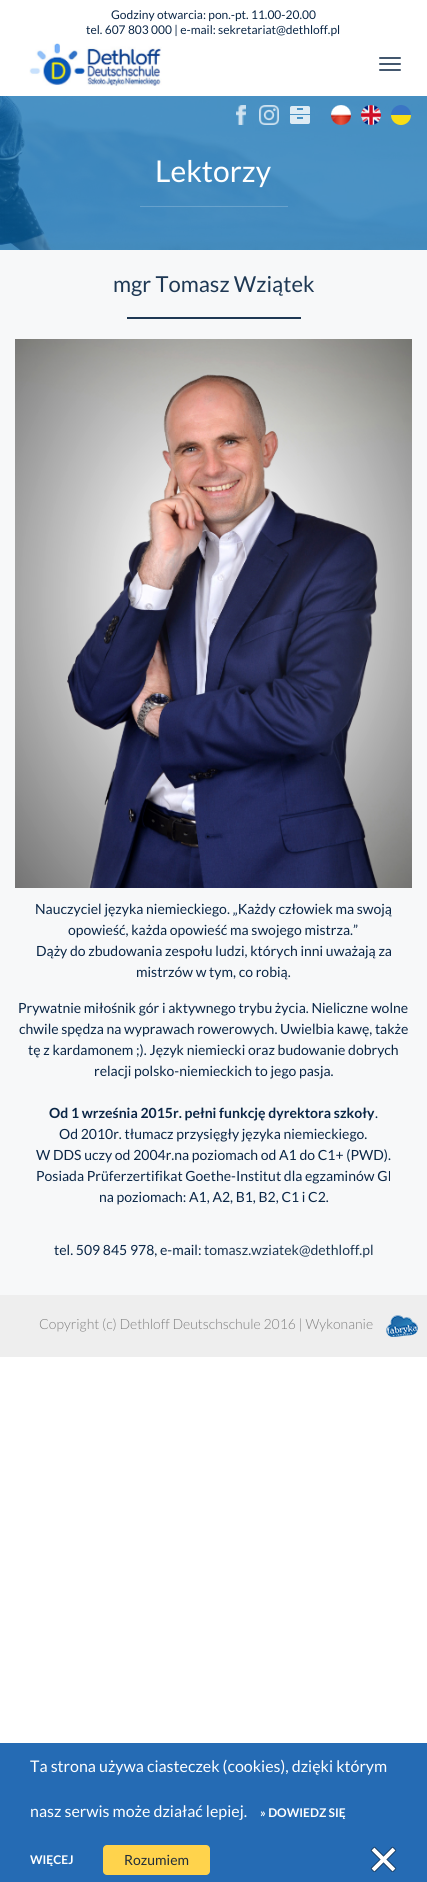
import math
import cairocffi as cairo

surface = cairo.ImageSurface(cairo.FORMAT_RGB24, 427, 1882)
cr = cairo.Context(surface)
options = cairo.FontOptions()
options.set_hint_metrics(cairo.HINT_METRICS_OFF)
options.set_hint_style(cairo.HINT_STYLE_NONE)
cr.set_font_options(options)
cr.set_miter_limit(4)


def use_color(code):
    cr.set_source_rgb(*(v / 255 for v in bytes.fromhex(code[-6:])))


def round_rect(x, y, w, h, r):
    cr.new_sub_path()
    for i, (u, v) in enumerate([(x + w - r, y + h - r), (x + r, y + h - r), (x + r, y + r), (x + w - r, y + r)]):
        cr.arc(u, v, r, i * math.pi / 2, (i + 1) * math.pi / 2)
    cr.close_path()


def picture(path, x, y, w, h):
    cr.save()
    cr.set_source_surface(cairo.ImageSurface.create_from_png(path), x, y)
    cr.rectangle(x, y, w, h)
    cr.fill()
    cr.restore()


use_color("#ffffff")
cr.paint()
cr.select_font_face("Lato")
cr.set_font_size(12)
use_color("#0a2646")
cr.move_to(111, 19)
cr.show_text("Godziny otwarcia: pon.-pt. 11.00-20.00")
cr.move_to(86, 34)
cr.show_text("tel. 607 803 000 | e-mail: sekretariat@dethloff.pl")
picture("img1.png", 29, 43, 133, 43)
use_color("#43576e")
round_rect(379, 57, 22, 2, 1)
cr.fill()
round_rect(379, 63, 22, 2, 1)
cr.fill()
round_rect(379, 69, 22, 2, 1)
cr.fill()
picture("img2.png", 0, 96, 427, 154)
picture("img3.png", 236, 105, 10, 20)
picture("img4.png", 259, 105, 20, 20)
picture("img5.png", 290, 106, 20, 18)
picture("img6.png", 331, 105, 20, 20)
picture("img7.png", 361, 105, 20, 20)
picture("img8.png", 391, 105, 20, 20)
cr.set_font_size(30)
use_color("#ffffff")
cr.move_to(155, 182)
cr.show_text("Lektorzy")
cr.set_source_rgba(1, 1, 1, 0.2)
cr.rectangle(140, 206, 148, 1)
cr.fill()
use_color("#f7f8f9")
cr.rectangle(0, 250, 427, 1045)
cr.fill()
cr.set_font_size(22)
use_color("#1e3854")
cr.move_to(113, 292)
cr.show_text("mgr Tomasz Wziątek")
cr.rectangle(127, 317, 174, 2)
cr.fill()
picture("img9.png", 15, 339, 397, 549)
cr.set_font_size(14)
use_color("#0a2646")
cr.move_to(35, 914)
cr.show_text("Nauczyciel języka niemieckiego. „Każdy człowiek ma swoją")
cr.move_to(68, 935)
cr.show_text("opowieść, każda opowieść ma swojego mistrza.”")
cr.move_to(36, 956)
cr.show_text("Dąży do zbudowania zespołu ludzi, których inni uważają za")
cr.move_to(136, 977)
cr.show_text("mistrzów w tym, co robią.")
cr.move_to(18, 1013)
cr.show_text("Prywatnie miłośnik gór i aktywnego trybu życia. Nieliczne wolne")
cr.move_to(19, 1034)
cr.show_text("chwile spędza na wyprawach rowerowych. Uwielbia kawę, także")
cr.move_to(28, 1055)
cr.show_text("tę z kardamonem ;). Język niemiecki oraz budowanie dobrych")
cr.move_to(94, 1076)
cr.show_text("relacji polsko-niemieckich to jego pasja.")
cr.select_font_face("Lato", cairo.FONT_SLANT_NORMAL, cairo.FONT_WEIGHT_BOLD)
cr.move_to(49, 1118)
cr.show_text("Od 1 września 2015r. pełni funkcję dyrektora szkoły")
cr.select_font_face("Lato")
cr.move_to(375, 1118)
cr.show_text(".")
cr.move_to(59, 1139)
cr.show_text("Od 2010r. tłumacz przysięgły języka niemieckiego.")
cr.move_to(36, 1160)
cr.show_text("W DDS uczy od 2004r.na poziomach od A1 do C1+ (PWD).")
cr.move_to(36, 1181)
cr.show_text("Posiada Prüferzertifikat Goethe-Institut dla egzaminów GI")
cr.move_to(99, 1202)
cr.show_text("na poziomach: A1, A2, B1, B2, C1 i C2.")
cr.move_to(54, 1255)
cr.show_text("tel. 509 845 978, e-mail:")
use_color("#1e3854")
cr.move_to(204, 1255)
cr.show_text("tomasz.wziatek@dethloff.pl")
use_color("#eeeeee")
cr.rectangle(0, 1295, 427, 62)
cr.fill()
cr.select_font_face("Lato Light")
use_color("#7e7e7e")
cr.move_to(39, 1329)
cr.show_text("Copyright (c) Dethloff Deutschschule 2016 | Wykonanie")
picture("img10.png", 386, 1315, 32, 22)
use_color("#256bb4")
cr.rectangle(0, 1743, 427, 139)
cr.fill()
cr.select_font_face("Lato")
cr.set_font_size(16)
use_color("#ffffff")
cr.move_to(30, 1772)
cr.show_text("Ta strona używa ciasteczek (cookies), dzięki którym")
cr.move_to(30, 1817)
cr.show_text("nasz serwis może działać lepiej.")
cr.select_font_face("Lato", cairo.FONT_SLANT_NORMAL, cairo.FONT_WEIGHT_BOLD)
cr.set_font_size(12)
cr.move_to(260, 1817)
cr.show_text("» DOWIEDZ SIĘ")
cr.move_to(30, 1864)
cr.show_text("WIĘCEJ")
use_color("#ffd34c")
round_rect(103, 1845, 107, 30, 4)
cr.fill()
cr.select_font_face("Lato")
cr.set_font_size(14)
use_color("#212d3a")
cr.move_to(124, 1865)
cr.show_text("Rozumiem")
picture("img11.png", 370, 1846, 27, 26)
surface.write_to_png("result.png")
